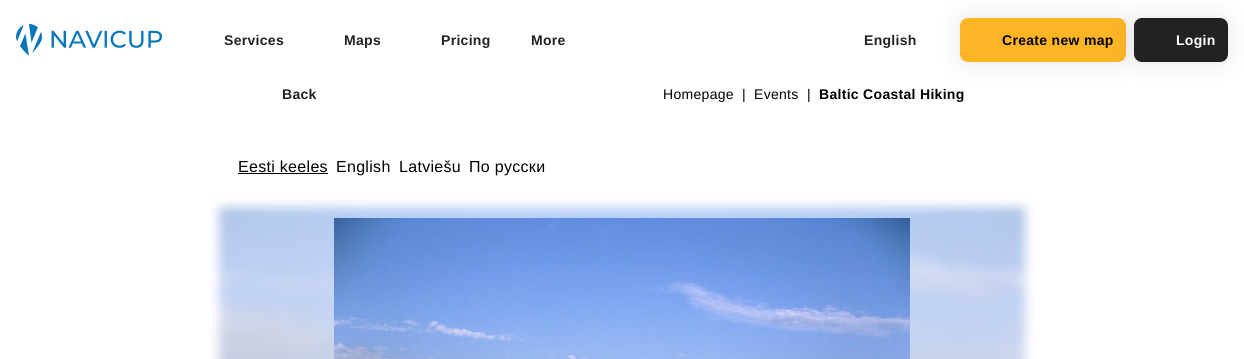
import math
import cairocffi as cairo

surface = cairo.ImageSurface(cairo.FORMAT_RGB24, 1244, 359)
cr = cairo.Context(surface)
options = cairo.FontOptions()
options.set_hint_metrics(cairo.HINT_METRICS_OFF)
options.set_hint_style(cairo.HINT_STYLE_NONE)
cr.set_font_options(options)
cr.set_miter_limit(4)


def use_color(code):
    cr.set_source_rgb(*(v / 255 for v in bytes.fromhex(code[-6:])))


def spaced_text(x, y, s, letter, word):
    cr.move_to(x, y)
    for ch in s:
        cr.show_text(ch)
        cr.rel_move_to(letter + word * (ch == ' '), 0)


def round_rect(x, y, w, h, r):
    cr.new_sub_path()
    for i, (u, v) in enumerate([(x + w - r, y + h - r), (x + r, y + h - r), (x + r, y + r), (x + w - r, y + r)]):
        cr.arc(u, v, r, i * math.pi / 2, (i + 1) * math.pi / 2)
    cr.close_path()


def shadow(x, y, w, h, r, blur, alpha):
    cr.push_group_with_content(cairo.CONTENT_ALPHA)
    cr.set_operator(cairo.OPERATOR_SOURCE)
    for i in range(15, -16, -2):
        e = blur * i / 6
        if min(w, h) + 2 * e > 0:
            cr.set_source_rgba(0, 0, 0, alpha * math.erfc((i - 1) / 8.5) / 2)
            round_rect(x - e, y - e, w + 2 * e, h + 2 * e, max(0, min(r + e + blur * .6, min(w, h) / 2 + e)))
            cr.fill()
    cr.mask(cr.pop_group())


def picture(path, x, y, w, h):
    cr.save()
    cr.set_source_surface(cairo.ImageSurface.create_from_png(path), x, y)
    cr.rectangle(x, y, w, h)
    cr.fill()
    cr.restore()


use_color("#ffffff")
cr.paint()
picture("img1.png", 16, 24, 146, 32)
cr.select_font_face("Liberation Sans", cairo.FONT_SLANT_NORMAL, cairo.FONT_WEIGHT_BOLD)
cr.set_font_size(14)
use_color("#222222")
spaced_text(224, 45, "Services", 0.3, 0)
spaced_text(344, 45, "Maps", 0.3, 0)
spaced_text(441, 45, "Pricing", 0.3, 0)
spaced_text(531, 45, "More", 0.3, 0)
spaced_text(864, 45, "English", 0.3, 0)
use_color("#000000")
shadow(960, 18, 166, 44, 8, 12, 0.1)
use_color("#fdb525")
round_rect(960, 18, 166, 44, 8)
cr.fill()
use_color("#000000")
spaced_text(1002, 45, "Create new map", 0.3, 0)
use_color("#000000")
shadow(1134, 18, 94, 44, 8, 12, 0.1)
use_color("#222222")
round_rect(1134, 18, 94, 44, 8)
cr.fill()
use_color("#ffffff")
spaced_text(1176, 45, "Login", 0.3, 0)
use_color("#222222")
spaced_text(282, 99, "Back", 0.3, 0)
cr.select_font_face("Liberation Sans")
use_color("#000000")
spaced_text(663, 99, "Homepage", 0.3, 0)
spaced_text(742, 99, "|", 0.3, 0)
spaced_text(754, 99, "Events", 0.3, 0)
spaced_text(807, 99, "|", 0.3, 0)
cr.select_font_face("Liberation Sans", cairo.FONT_SLANT_NORMAL, cairo.FONT_WEIGHT_BOLD)
spaced_text(819, 99, "Baltic Coastal Hiking", 0.3, 0)
cr.select_font_face("Liberation Sans")
cr.set_font_size(16)
spaced_text(238, 172, "Eesti keeles", 0.3, 0)
cr.rectangle(238, 173, 90, 1)
cr.fill()
spaced_text(336, 172, "English", 0.3, 0)
spaced_text(399, 172, "Latviešu", 0.3, 0)
spaced_text(469, 172, "По русски", 0.3, 0)
picture("img2.png", 210, 199, 824, 160)
picture("img3.png", 334, 218, 576, 141)
surface.write_to_png("result.png")
